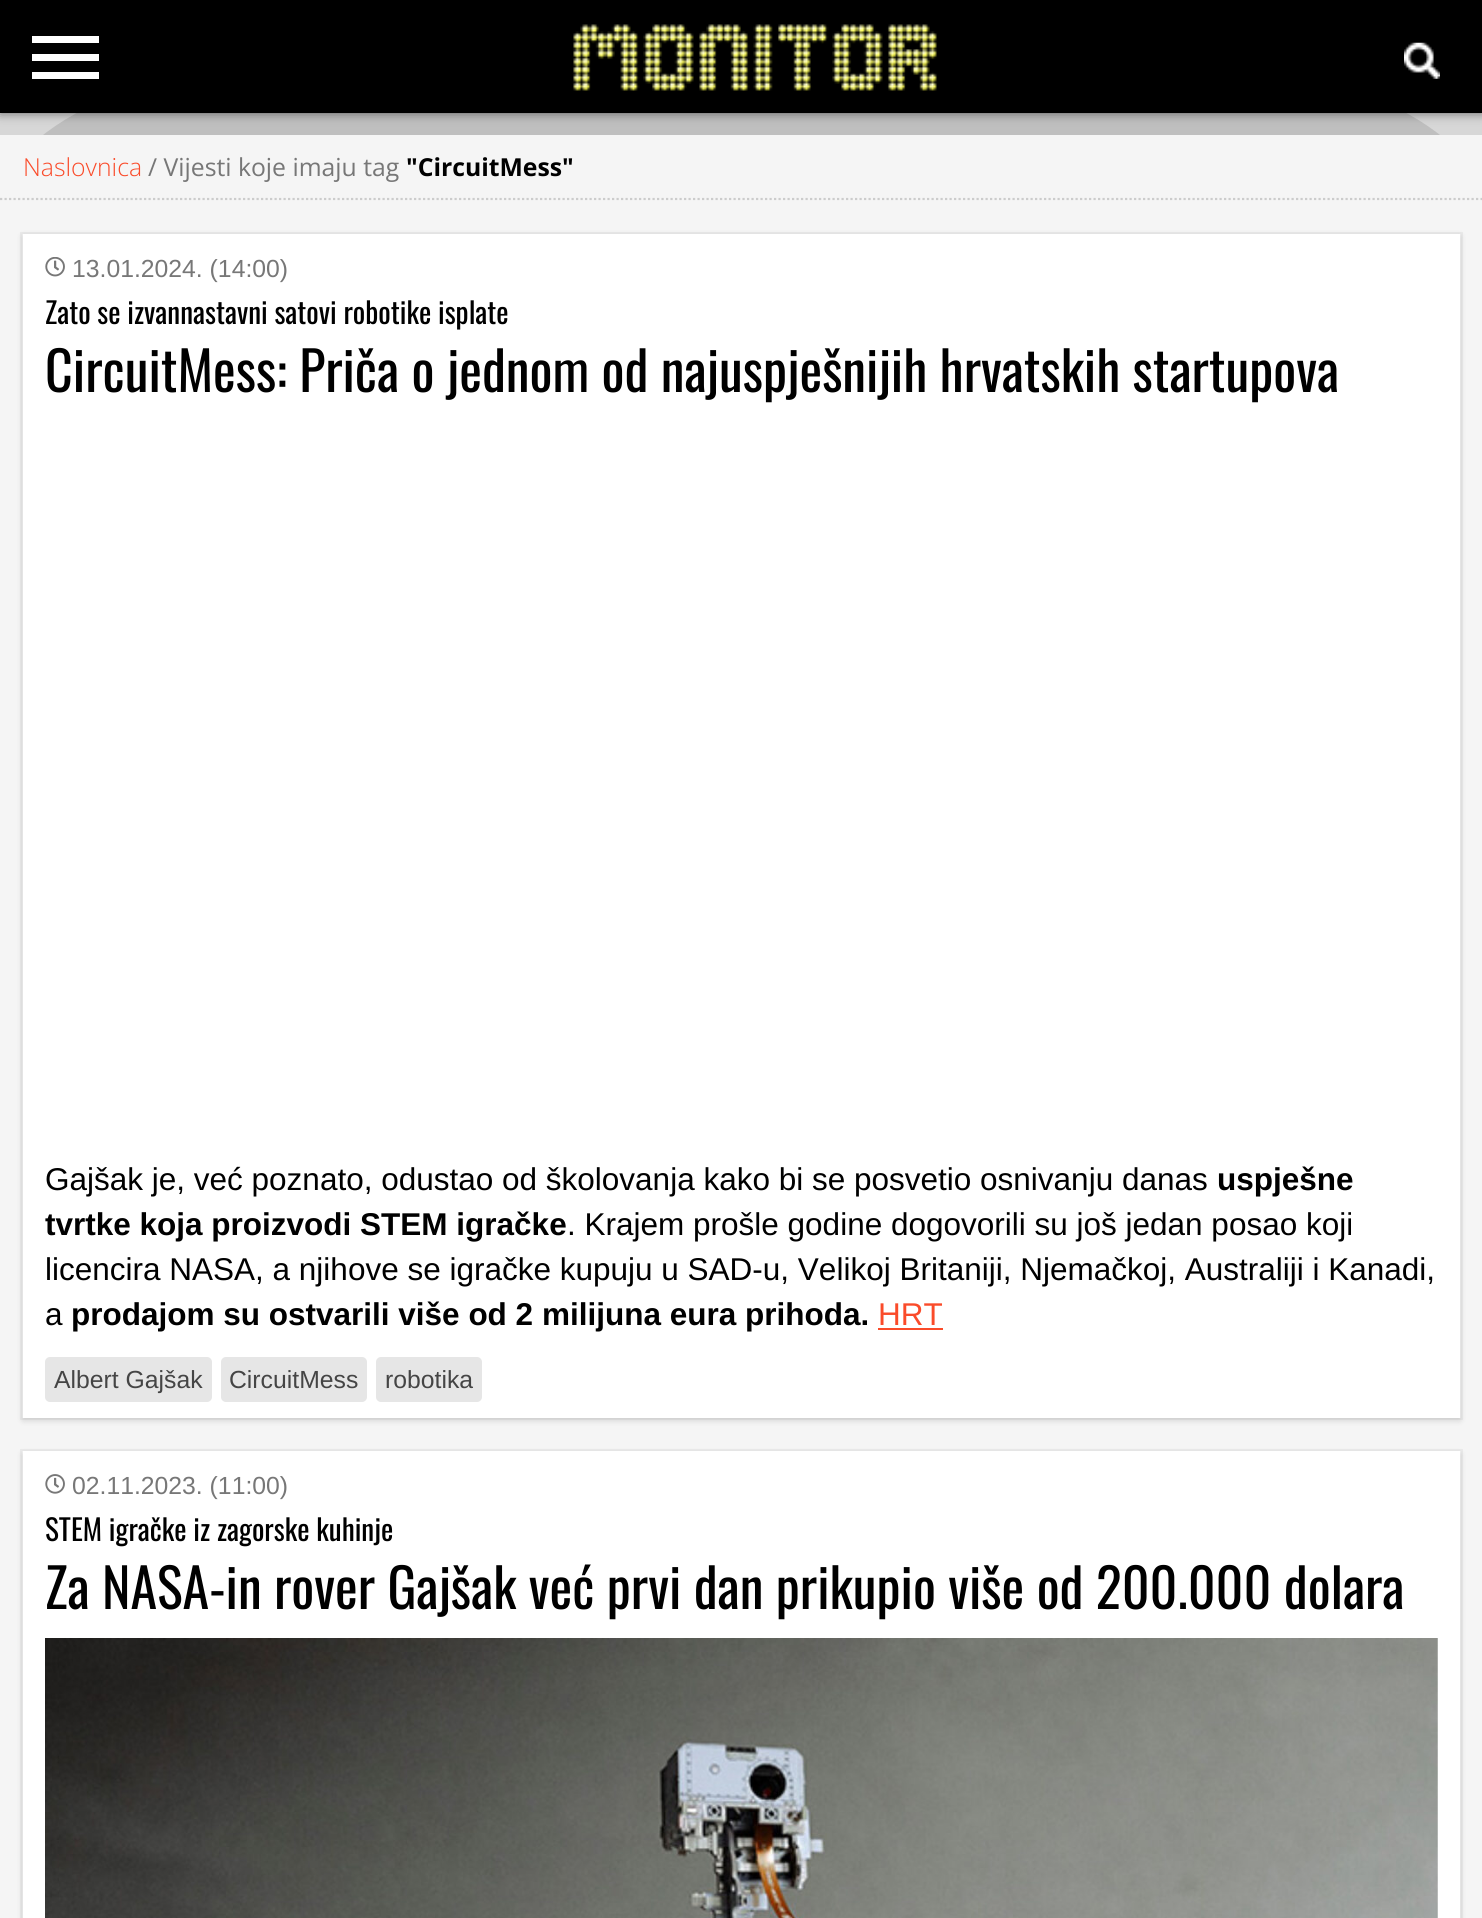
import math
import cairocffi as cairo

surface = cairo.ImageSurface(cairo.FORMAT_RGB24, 1482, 1918)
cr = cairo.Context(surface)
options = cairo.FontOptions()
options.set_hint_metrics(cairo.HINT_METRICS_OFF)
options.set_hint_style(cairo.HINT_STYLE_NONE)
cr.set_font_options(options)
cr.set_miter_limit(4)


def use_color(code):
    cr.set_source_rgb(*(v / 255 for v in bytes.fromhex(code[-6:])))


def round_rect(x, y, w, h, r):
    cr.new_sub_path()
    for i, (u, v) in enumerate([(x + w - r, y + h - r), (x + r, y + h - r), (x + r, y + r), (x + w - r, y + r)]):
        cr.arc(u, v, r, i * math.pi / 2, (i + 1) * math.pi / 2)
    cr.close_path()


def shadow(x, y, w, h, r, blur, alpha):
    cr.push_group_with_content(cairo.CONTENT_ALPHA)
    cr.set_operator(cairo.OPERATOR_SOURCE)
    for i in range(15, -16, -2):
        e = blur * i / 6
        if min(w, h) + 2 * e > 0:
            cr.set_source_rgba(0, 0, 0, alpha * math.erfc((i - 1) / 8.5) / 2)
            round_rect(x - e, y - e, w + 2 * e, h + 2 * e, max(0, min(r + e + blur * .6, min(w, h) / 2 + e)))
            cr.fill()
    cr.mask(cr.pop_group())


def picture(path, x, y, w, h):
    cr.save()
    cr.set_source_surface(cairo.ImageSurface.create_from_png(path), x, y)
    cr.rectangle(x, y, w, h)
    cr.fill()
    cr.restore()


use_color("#ffffff")
cr.paint()
use_color("#777777")
shadow(0, 0, 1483, 113, 0, 5.5, 1)
use_color("#000000")
shadow(90, 225, 1303, 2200, 0, 169, 1)
use_color("#000000")
cr.rectangle(0, 0, 1482, 113)
cr.fill()
use_color("#ffffff")
cr.rectangle(32, 36, 67, 7)
cr.fill()
cr.rectangle(32, 54, 67, 7)
cr.fill()
cr.rectangle(32, 72, 67, 7)
cr.fill()
picture("img1.png", 573, 24, 364, 67)
picture("img2.png", 1404, 42, 36, 37)
use_color("#f5f5f5")
cr.rectangle(0, 135, 1482, 1783)
cr.fill()
cr.new_path()
cr.move_to(0, 199)
cr.line_to(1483, 199)
use_color("#cccccc")
cr.set_line_width(2.2)
cr.set_dash([2.25, 2.25])
cr.stroke()
cr.select_font_face("Open Sans Light")
cr.set_font_size(24.75)
use_color("#fa4b2a")
cr.move_to(23, 176)
cr.show_text("Naslovnica")
cr.select_font_face("Open Sans")
use_color("#777777")
cr.move_to(148, 176)
cr.show_text("/ Vijesti koje imaju tag")
cr.select_font_face("Open Sans", cairo.FONT_SLANT_NORMAL, cairo.FONT_WEIGHT_BOLD)
use_color("#000000")
cr.move_to(406, 176)
cr.show_text("\"CircuitMess\"")
cr.rectangle(21, 233, 1441, 1186)
use_color("#ebebeb")
cr.set_line_width(2)
cr.set_dash([])
cr.stroke()
use_color("#000000")
shadow(23, 236, 1437, 1184, 0, 3.5, 0.16)
use_color("#ffffff")
cr.rectangle(23, 234, 1437, 1184)
cr.fill()
picture("img3.png", 45, 257, 20, 20)
cr.select_font_face("Liberation Sans")
use_color("#777777")
cr.move_to(72, 277)
cr.show_text("13.01.2024. (14:00)")
cr.select_font_face("Oswald")
cr.set_font_size(29.25)
use_color("#000000")
cr.move_to(45, 324)
cr.show_text("Zato se izvannastavni satovi robotike isplate")
cr.set_font_size(54)
cr.move_to(45, 392)
cr.show_text("CircuitMess: Priča o jednom od najuspješnijih hrvatskih startupova")
cr.select_font_face("Liberation Sans")
cr.set_font_size(31.5)
cr.move_to(45, 1190)
cr.show_text("Gajšak je, već poznato, odustao od školovanja kako bi se posvetio osnivanju danas")
cr.select_font_face("Liberation Sans", cairo.FONT_SLANT_NORMAL, cairo.FONT_WEIGHT_BOLD)
cr.move_to(1217, 1190)
cr.show_text("uspješne")
cr.move_to(45, 1235)
cr.show_text("tvrtke koja proizvodi STEM igračke")
cr.select_font_face("Liberation Sans")
cr.move_to(567, 1235)
cr.show_text(". Krajem prošle godine dogovorili su još jedan posao koji")
cr.move_to(45, 1280)
cr.show_text("licencira NASA, a njihove se igračke kupuju u SAD-u, Velikoj Britaniji, Njemačkoj, Australiji i Kanadi,")
cr.move_to(45, 1325)
cr.show_text("a")
cr.select_font_face("Liberation Sans", cairo.FONT_SLANT_NORMAL, cairo.FONT_WEIGHT_BOLD)
cr.move_to(71, 1325)
cr.show_text("prodajom su ostvarili više od 2 milijuna eura prihoda.")
cr.select_font_face("Liberation Sans")
use_color("#fa4b2a")
cr.move_to(878, 1325)
cr.show_text("HRT")
cr.rectangle(878, 1328, 65, 2)
cr.fill()
use_color("#e6e6e6")
round_rect(45, 1357, 167, 45, 5)
cr.fill()
cr.set_font_size(24.75)
use_color("#454545")
cr.move_to(54, 1388)
cr.show_text("Albert Gajšak")
use_color("#e6e6e6")
round_rect(221, 1357, 146, 45, 5)
cr.fill()
use_color("#454545")
cr.move_to(229, 1388)
cr.show_text("CircuitMess")
use_color("#e6e6e6")
round_rect(376, 1357, 106, 45, 5)
cr.fill()
use_color("#454545")
cr.move_to(385, 1388)
cr.show_text("robotika")
cr.rectangle(21, 1450, 1441, 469)
use_color("#ebebeb")
cr.stroke()
use_color("#000000")
shadow(23, 1454, 1437, 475, 0, 3.5, 0.16)
use_color("#ffffff")
cr.rectangle(23, 1451, 1437, 467)
cr.fill()
picture("img4.png", 45, 1474, 20, 20)
use_color("#777777")
cr.move_to(72, 1494)
cr.show_text("02.11.2023. (11:00)")
cr.select_font_face("Oswald")
cr.set_font_size(29.25)
use_color("#000000")
cr.move_to(45, 1541)
cr.show_text("STEM igračke iz zagorske kuhinje")
cr.set_font_size(54)
cr.move_to(45, 1609)
cr.show_text("Za NASA-in rover Gajšak već prvi dan prikupio više od 200.000 dolara")
picture("img5.png", 45, 1638, 1393, 280)
surface.write_to_png("result.png")
